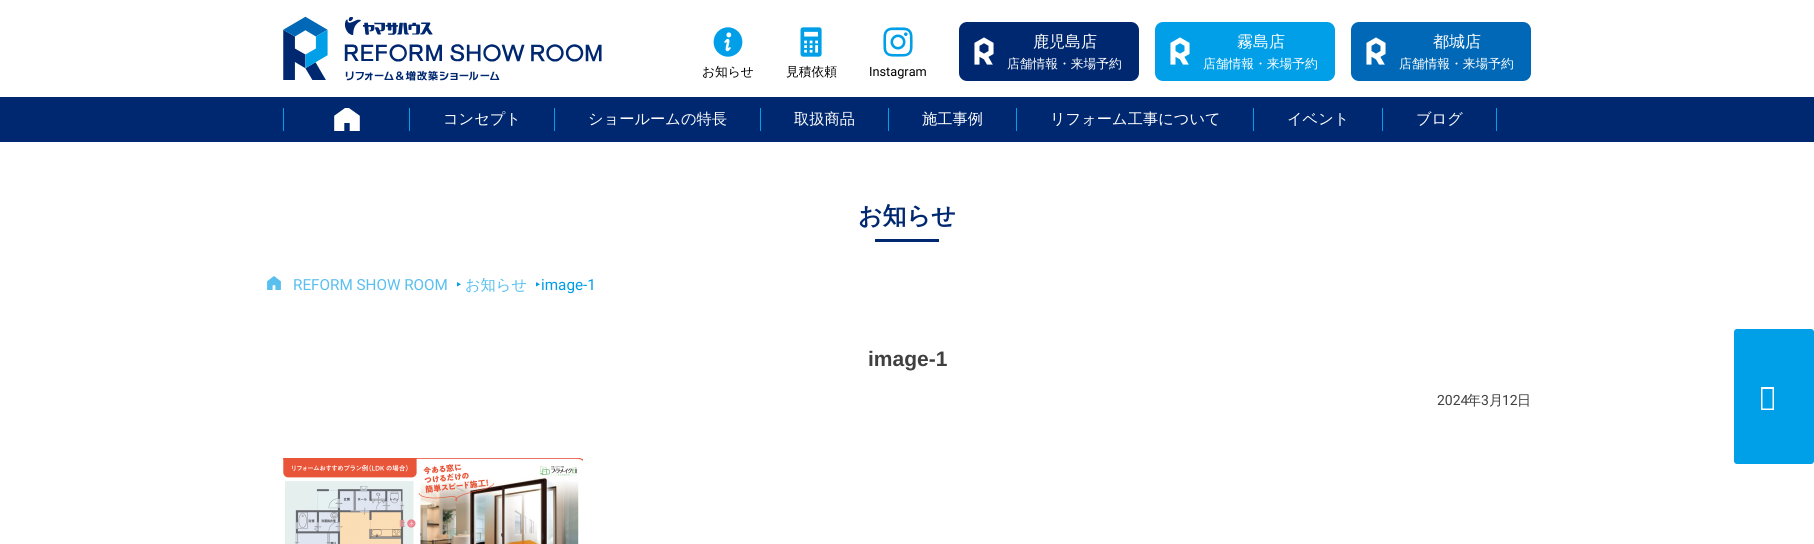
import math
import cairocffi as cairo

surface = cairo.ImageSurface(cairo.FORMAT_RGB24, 1814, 544)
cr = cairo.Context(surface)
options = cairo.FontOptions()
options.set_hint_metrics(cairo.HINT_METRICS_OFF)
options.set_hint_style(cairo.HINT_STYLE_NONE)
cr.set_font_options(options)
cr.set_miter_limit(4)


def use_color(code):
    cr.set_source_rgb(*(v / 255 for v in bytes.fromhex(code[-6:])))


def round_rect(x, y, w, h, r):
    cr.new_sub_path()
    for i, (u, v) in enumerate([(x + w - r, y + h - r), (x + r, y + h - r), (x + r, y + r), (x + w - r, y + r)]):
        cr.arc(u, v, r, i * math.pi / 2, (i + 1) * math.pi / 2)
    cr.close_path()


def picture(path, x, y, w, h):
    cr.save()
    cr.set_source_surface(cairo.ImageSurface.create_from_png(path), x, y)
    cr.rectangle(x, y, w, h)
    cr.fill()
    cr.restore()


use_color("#ffffff")
cr.paint()
picture("img1.png", 283, 16, 319, 65)
use_color("#002870")
round_rect(959, 22, 180, 59, 8)
cr.fill()
picture("img2.png", 974, 37, 20, 28)
cr.select_font_face("WenQuanYi Zen Hei Medium")
cr.set_font_size(16)
use_color("#ffffff")
cr.move_to(1033, 47)
cr.show_text("鹿児島店")
cr.set_font_size(12.75)
cr.move_to(1007, 68)
cr.show_text("店舗情報・来場予約")
use_color("#009fe8")
round_rect(1155, 22, 180, 59, 8)
cr.fill()
picture("img3.png", 1170, 37, 20, 28)
cr.set_font_size(16)
use_color("#ffffff")
cr.move_to(1237, 47)
cr.show_text("霧島店")
cr.set_font_size(12.75)
cr.move_to(1203, 68)
cr.show_text("店舗情報・来場予約")
use_color("#0068b6")
round_rect(1351, 22, 180, 59, 8)
cr.fill()
picture("img4.png", 1366, 37, 20, 28)
cr.set_font_size(16)
use_color("#ffffff")
cr.move_to(1433, 47)
cr.show_text("都城店")
cr.set_font_size(12.75)
cr.move_to(1399, 68)
cr.show_text("店舗情報・来場予約")
picture("img5.png", 713, 27, 30, 30)
use_color("#000000")
cr.move_to(702, 76)
cr.show_text("お知らせ")
picture("img6.png", 800, 27, 22, 30)
cr.move_to(786, 76)
cr.show_text("見積依頼")
picture("img7.png", 883, 27, 30, 30)
cr.select_font_face("Roboto")
cr.move_to(869, 76)
cr.show_text("Instagram")
use_color("#002870")
cr.rectangle(0, 97, 1814, 45)
cr.fill()
use_color("#009fe8")
cr.rectangle(409, 108, 1, 23)
cr.fill()
cr.rectangle(283, 108, 1, 23)
cr.fill()
picture("img8.png", 334, 108, 26, 23)
cr.rectangle(554, 108, 1, 23)
cr.fill()
cr.select_font_face("WenQuanYi Zen Hei Medium")
cr.set_font_size(15.25)
use_color("#ffffff")
cr.move_to(443, 124)
cr.show_text("コンセプト")
use_color("#009fe8")
cr.rectangle(760, 108, 1, 23)
cr.fill()
use_color("#ffffff")
cr.move_to(588, 124)
cr.show_text("ショールームの特長")
use_color("#009fe8")
cr.rectangle(888, 108, 1, 23)
cr.fill()
use_color("#ffffff")
cr.move_to(794, 124)
cr.show_text("取扱商品")
use_color("#009fe8")
cr.rectangle(1016, 108, 1, 23)
cr.fill()
use_color("#ffffff")
cr.move_to(922, 124)
cr.show_text("施工事例")
use_color("#009fe8")
cr.rectangle(1253, 108, 1, 23)
cr.fill()
use_color("#ffffff")
cr.move_to(1050, 124)
cr.show_text("リフォーム工事について")
use_color("#009fe8")
cr.rectangle(1382, 108, 1, 23)
cr.fill()
use_color("#ffffff")
cr.move_to(1287, 124)
cr.show_text("イベント")
use_color("#009fe8")
cr.rectangle(1496, 108, 1, 23)
cr.fill()
use_color("#ffffff")
cr.move_to(1416, 124)
cr.show_text("ブログ")
cr.select_font_face("WenQuanYi Zen Hei", cairo.FONT_SLANT_NORMAL, cairo.FONT_WEIGHT_BOLD)
cr.set_font_size(24)
use_color("#002870")
cr.move_to(858, 224)
cr.show_text("お知らせ")
cr.rectangle(875, 239, 64, 3)
cr.fill()
picture("img9.png", 267, 276, 14, 14)
cr.select_font_face("Roboto")
cr.set_font_size(15.25)
use_color("#58bfef")
cr.move_to(293, 290)
cr.show_text("REFORM SHOW ROOM")
cr.select_font_face("Noto Sans")
use_color("#009de6")
cr.move_to(456, 290)
cr.show_text("‣")
cr.select_font_face("WenQuanYi Zen Hei Medium")
use_color("#58bfef")
cr.move_to(465, 290)
cr.show_text("お知らせ")
cr.select_font_face("Noto Sans")
use_color("#009de6")
cr.move_to(535, 290)
cr.show_text("‣")
cr.select_font_face("Roboto")
cr.move_to(541, 290)
cr.show_text("image-1")
cr.select_font_face("Liberation Sans", cairo.FONT_SLANT_NORMAL, cairo.FONT_WEIGHT_BOLD)
cr.set_font_size(21)
use_color("#404040")
cr.move_to(868, 366)
cr.show_text("image-1")
cr.select_font_face("Roboto")
cr.set_font_size(14)
cr.move_to(1437, 405)
cr.show_text("2024")
cr.select_font_face("WenQuanYi Zen Hei Medium")
cr.move_to(1467, 405)
cr.show_text("年")
cr.select_font_face("Roboto")
cr.move_to(1481, 405)
cr.show_text("3")
cr.select_font_face("WenQuanYi Zen Hei Medium")
cr.move_to(1489, 405)
cr.show_text("月")
cr.select_font_face("Roboto")
cr.move_to(1502, 405)
cr.show_text("12")
cr.select_font_face("WenQuanYi Zen Hei Medium")
cr.move_to(1517, 405)
cr.show_text("日")
picture("img10.png", 283, 458, 300, 86)
use_color("#00a0e8")
round_rect(1734, 329, 80, 135, 3)
cr.fill()
use_color("#ffffff")
cr.new_path()
cr.move_to(1761, 410)
cr.line_to(1761, 387)
cr.line_to(1774, 387)
cr.line_to(1774, 410)
cr.close_path()
cr.move_to(1762.5, 408.5)
cr.line_to(1772.5, 408.5)
cr.line_to(1772.5, 389)
cr.line_to(1762.5, 389)
cr.close_path()
cr.fill()
surface.write_to_png("result.png")
